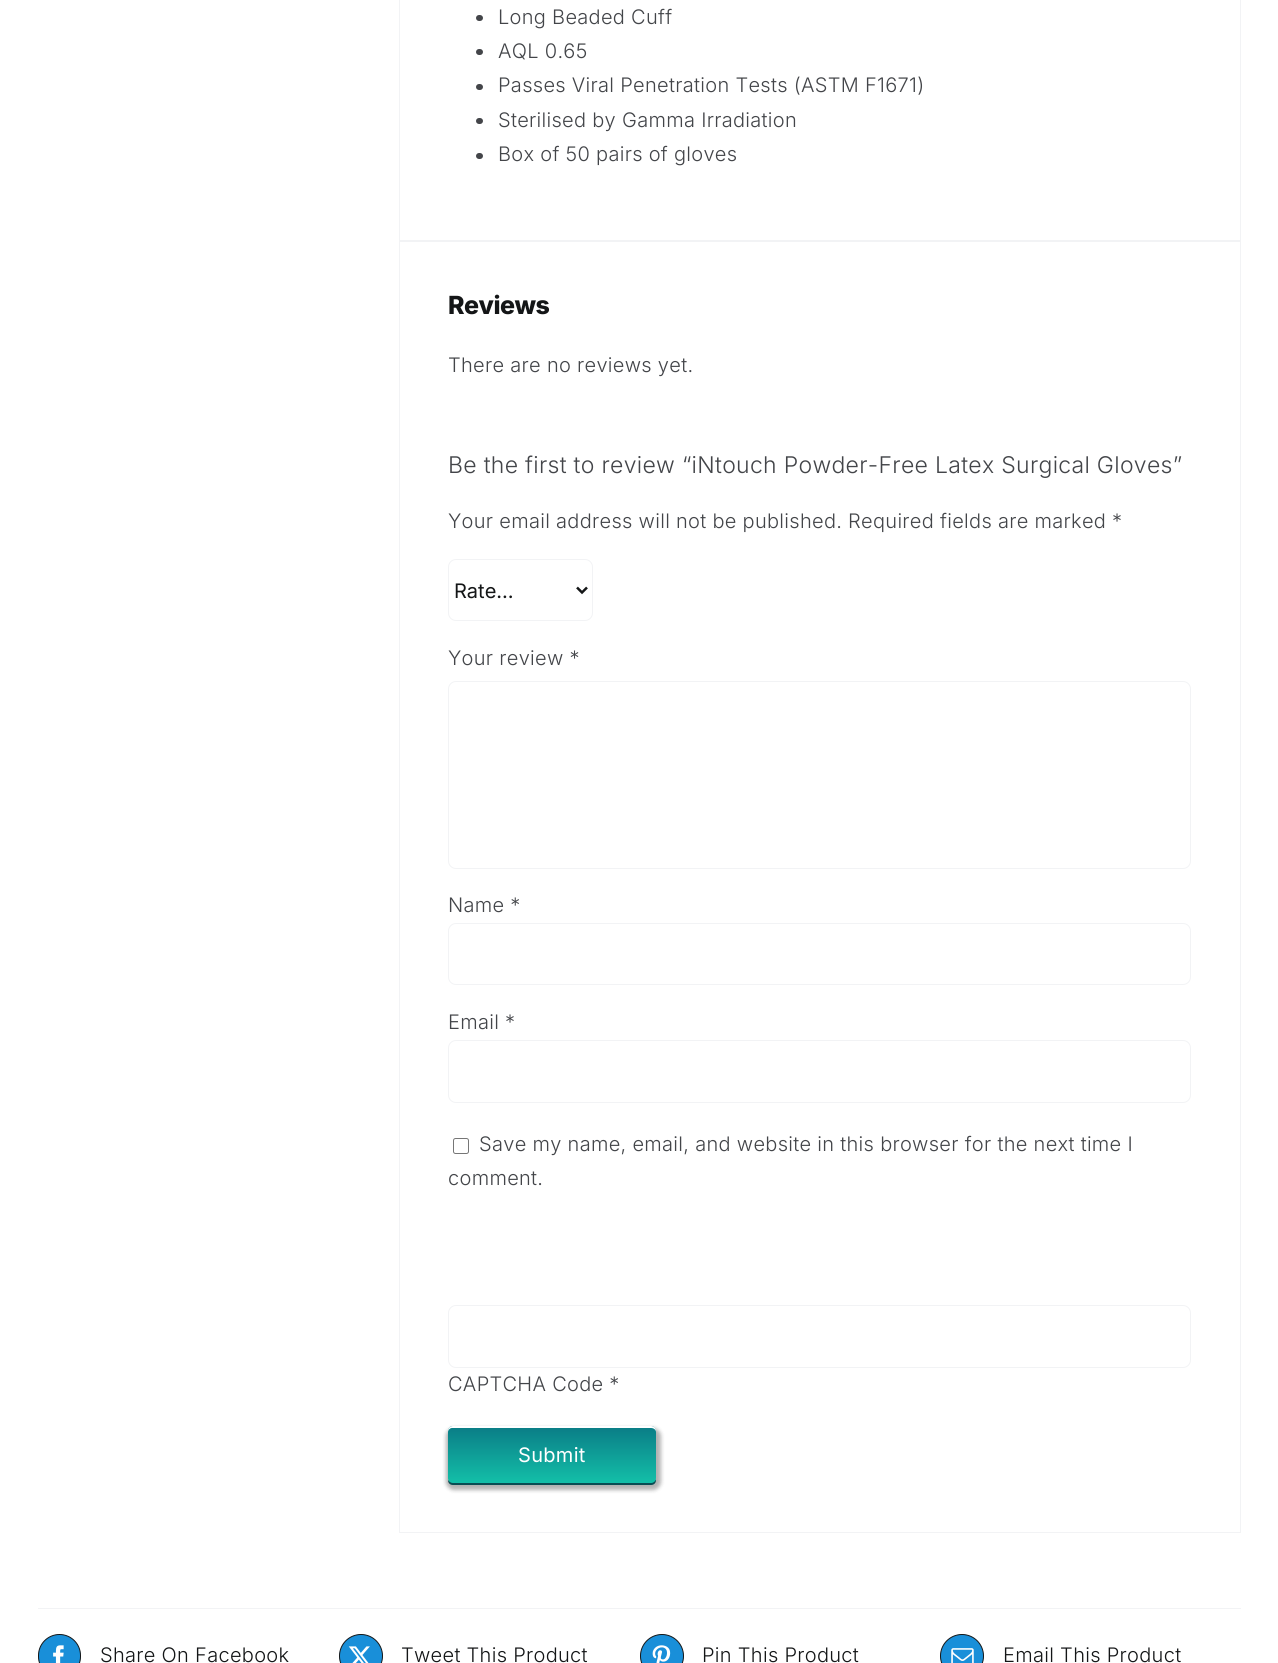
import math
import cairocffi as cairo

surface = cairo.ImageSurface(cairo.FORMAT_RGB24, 1278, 1663)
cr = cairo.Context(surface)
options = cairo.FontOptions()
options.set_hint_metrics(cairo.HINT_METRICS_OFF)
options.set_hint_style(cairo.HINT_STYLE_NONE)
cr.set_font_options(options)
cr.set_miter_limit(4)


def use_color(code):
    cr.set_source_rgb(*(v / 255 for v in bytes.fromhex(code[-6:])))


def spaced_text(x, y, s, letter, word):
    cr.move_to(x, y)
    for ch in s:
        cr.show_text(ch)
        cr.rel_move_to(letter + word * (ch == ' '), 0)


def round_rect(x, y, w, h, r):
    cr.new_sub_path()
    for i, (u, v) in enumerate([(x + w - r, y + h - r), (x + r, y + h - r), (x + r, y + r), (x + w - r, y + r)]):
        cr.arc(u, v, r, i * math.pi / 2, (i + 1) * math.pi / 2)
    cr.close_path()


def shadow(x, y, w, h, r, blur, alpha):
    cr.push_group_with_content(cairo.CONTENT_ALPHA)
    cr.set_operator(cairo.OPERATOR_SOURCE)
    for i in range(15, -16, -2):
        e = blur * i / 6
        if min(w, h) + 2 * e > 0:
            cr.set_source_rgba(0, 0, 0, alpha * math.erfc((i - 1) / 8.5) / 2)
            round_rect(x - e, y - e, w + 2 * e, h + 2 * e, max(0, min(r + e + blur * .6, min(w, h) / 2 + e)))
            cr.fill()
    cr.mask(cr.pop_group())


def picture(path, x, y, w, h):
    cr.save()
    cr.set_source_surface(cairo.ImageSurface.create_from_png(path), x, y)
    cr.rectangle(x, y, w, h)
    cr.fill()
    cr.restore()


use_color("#ffffff")
cr.paint()
cr.rectangle(399.5, -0.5, 841, 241)
use_color("#f2f3f5")
cr.set_line_width(1)
cr.stroke()
use_color("#434549")
round_rect(476, 15, 7, 6, 3)
cr.fill()
cr.select_font_face("Inter Light")
cr.set_font_size(20)
spaced_text(498, 24, "Long Beaded Cuff", 0.3, 0)
round_rect(476, 49, 7, 6, 3)
cr.fill()
spaced_text(498, 58, "AQL 0.65", 0.3, 0)
round_rect(476, 84, 7, 6, 3)
cr.fill()
spaced_text(498, 92, "Passes Viral Penetration Tests (ASTM F1671)", 0.3, 0)
round_rect(476, 118, 7, 6, 3)
cr.fill()
spaced_text(498, 127, "Sterilised by Gamma Irradiation", 0.3, 0)
round_rect(476, 153, 7, 6, 3)
cr.fill()
spaced_text(498, 161, "Box of 50 pairs of gloves", 0.3, 0)
cr.rectangle(399.5, 241.5, 841, 1291)
use_color("#f2f3f5")
cr.stroke()
cr.select_font_face("Inter ExtraBold")
cr.set_font_size(25)
use_color("#141617")
spaced_text(448, 314, "Reviews", -0.5, 0)
cr.select_font_face("Inter Light")
cr.set_font_size(20)
use_color("#434549")
spaced_text(448, 372, "There are no reviews yet.", 0.3, 0)
cr.set_font_size(23)
spaced_text(448, 473, "Be the first to review “iNtouch Powder-Free Latex Surgical Gloves”", 0.3, 0)
cr.set_font_size(20)
spaced_text(448, 528, "Your email address will not be published. Required fields are marked *", 0.3, 0)
round_rect(448.5, 559.5, 144, 61, 7.5)
use_color("#f2f3f5")
cr.stroke()
cr.new_path()
cr.move_to(577, 587.5)
cr.line_to(582, 592.5)
cr.line_to(587, 587.5)
use_color("#141617")
cr.set_line_width(2.5)
cr.stroke()
cr.select_font_face("Inter")
cr.move_to(454, 598)
cr.show_text("Rate…")
cr.select_font_face("Inter Light")
use_color("#434549")
spaced_text(448, 665, "Your review *", 0.3, 0)
round_rect(448.5, 681.5, 742, 187, 7.5)
use_color("#f2f3f5")
cr.set_line_width(1)
cr.stroke()
use_color("#434549")
spaced_text(448, 912, "Name *", 0.3, 0)
round_rect(448.5, 923.5, 742, 61, 7.5)
use_color("#f2f3f5")
cr.stroke()
use_color("#434549")
spaced_text(448, 1029, "Email *", 0.3, 0)
round_rect(448.5, 1040.5, 742, 62, 7.5)
use_color("#f2f3f5")
cr.stroke()
round_rect(453.5, 1138.5, 15, 15, 2)
use_color("#767676")
cr.stroke()
use_color("#434549")
spaced_text(479, 1151, "Save my name, email, and website in this browser for the next time I", 0.3, 0)
spaced_text(448, 1185, "comment.", 0.3, 0)
round_rect(448.5, 1305.5, 742, 62, 7.5)
use_color("#f2f3f5")
cr.stroke()
use_color("#434549")
spaced_text(448, 1391, "CAPTCHA Code *", 0.3, 0)
use_color("#000000")
shadow(446, 1428, 215, 62, 8, 2, 0.3)
use_color("#094d53")
cr.new_path()
cr.move_to(448, 1480)
cr.curve_to(448, 1483, 450, 1485, 453, 1485)
cr.line_to(651, 1485)
cr.curve_to(654, 1485, 656, 1483, 656, 1480)
cr.line_to(656, 1479)
cr.curve_to(655, 1481, 653, 1482, 651, 1482)
cr.line_to(452, 1482)
cr.curve_to(451, 1482, 449, 1481, 448, 1480)
cr.close_path()
cr.fill()
gradient = cairo.LinearGradient(552, 1426, 552, 1483)
gradient.add_color_stop_rgba(0, 0.039, 0.486, 0.525, 1)
gradient.add_color_stop_rgba(1, 0.075, 0.749, 0.659, 1)
cr.set_source(gradient)
round_rect(448, 1426, 208, 57, 5)
cr.fill()
use_color("#ffffff")
cr.new_path()
cr.move_to(452, 1428)
cr.line_to(651, 1428)
cr.curve_to(654, 1428, 656, 1430, 656, 1432)
cr.line_to(656, 1431)
cr.curve_to(656, 1428, 654, 1426, 651, 1426)
cr.line_to(453, 1426)
cr.curve_to(450, 1426, 448, 1428, 448, 1431)
cr.line_to(448, 1432)
cr.curve_to(448, 1430, 450, 1428, 452, 1428)
cr.close_path()
cr.fill()
cr.select_font_face("Inter")
spaced_text(518, 1462, "Submit", 0.3, 0)
use_color("#f2f3f5")
cr.rectangle(38, 1608, 1203, 1)
cr.fill()
use_color("#198fd9")
round_rect(38.5, 1634.5, 42, 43, 21)
cr.fill_preserve()
use_color("#141617")
cr.stroke()
picture("img1.png", 53, 1645, 11, 18)
cr.select_font_face("Inter Light")
spaced_text(100, 1662, "Share On Facebook", 0.3, 0)
use_color("#198fd9")
cr.new_path()
cr.arc(361, 1656, 21.5, 0, 2 * math.pi)
cr.fill_preserve()
use_color("#141617")
cr.stroke()
picture("img2.png", 348, 1646, 22, 17)
spaced_text(401, 1662, "Tweet This Product", 0.3, 0)
use_color("#198fd9")
cr.new_path()
cr.arc(662, 1656, 21.5, 0, 2 * math.pi)
cr.fill_preserve()
use_color("#141617")
cr.stroke()
picture("img3.png", 652, 1645, 19, 18)
spaced_text(702, 1662, "Pin This Product", 0.3, 0)
use_color("#198fd9")
cr.new_path()
cr.arc(962, 1656, 21.5, 0, 2 * math.pi)
cr.fill_preserve()
use_color("#141617")
cr.stroke()
picture("img4.png", 951, 1648, 23, 15)
spaced_text(1003, 1662, "Email This Product", 0.3, 0)
surface.write_to_png("result.png")
